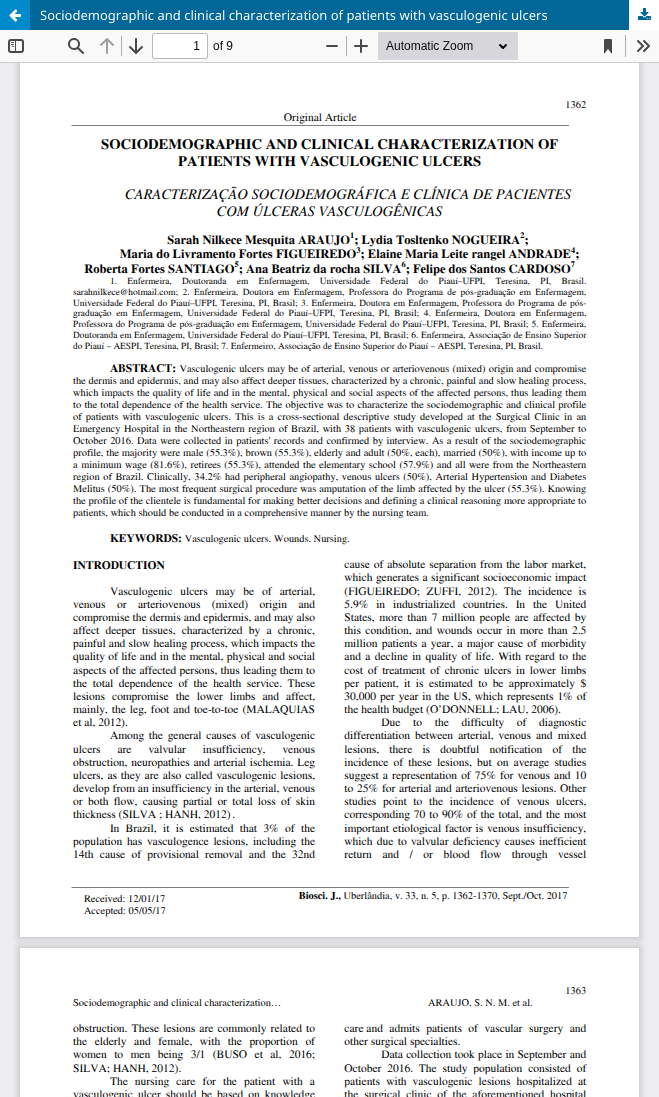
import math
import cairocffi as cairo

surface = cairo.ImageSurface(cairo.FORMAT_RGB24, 659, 1097)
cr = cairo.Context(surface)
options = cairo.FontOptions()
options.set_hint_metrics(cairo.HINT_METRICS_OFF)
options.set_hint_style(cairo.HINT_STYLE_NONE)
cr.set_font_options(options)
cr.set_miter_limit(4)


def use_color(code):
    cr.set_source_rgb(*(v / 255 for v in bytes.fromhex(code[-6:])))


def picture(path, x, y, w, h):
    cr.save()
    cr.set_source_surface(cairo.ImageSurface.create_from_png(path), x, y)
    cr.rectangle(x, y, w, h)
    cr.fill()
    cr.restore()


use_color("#ffffff")
cr.paint()
use_color("#006798")
cr.rectangle(30, 0, 599, 30)
cr.fill()
use_color("#008acb")
cr.rectangle(0, 0, 30, 30)
cr.fill()
picture("img1.png", 9, 9, 12, 13)
cr.select_font_face("Noto Sans")
cr.set_font_size(13)
use_color("#ffffff")
cr.move_to(40, 20)
cr.show_text("Sociodemographic and clinical characterization of patients with vasculogenic ulcers")
picture("img2.png", 638, 8, 13, 12)
picture("img3.png", 0, 30, 659, 1067)
surface.write_to_png("result.png")
